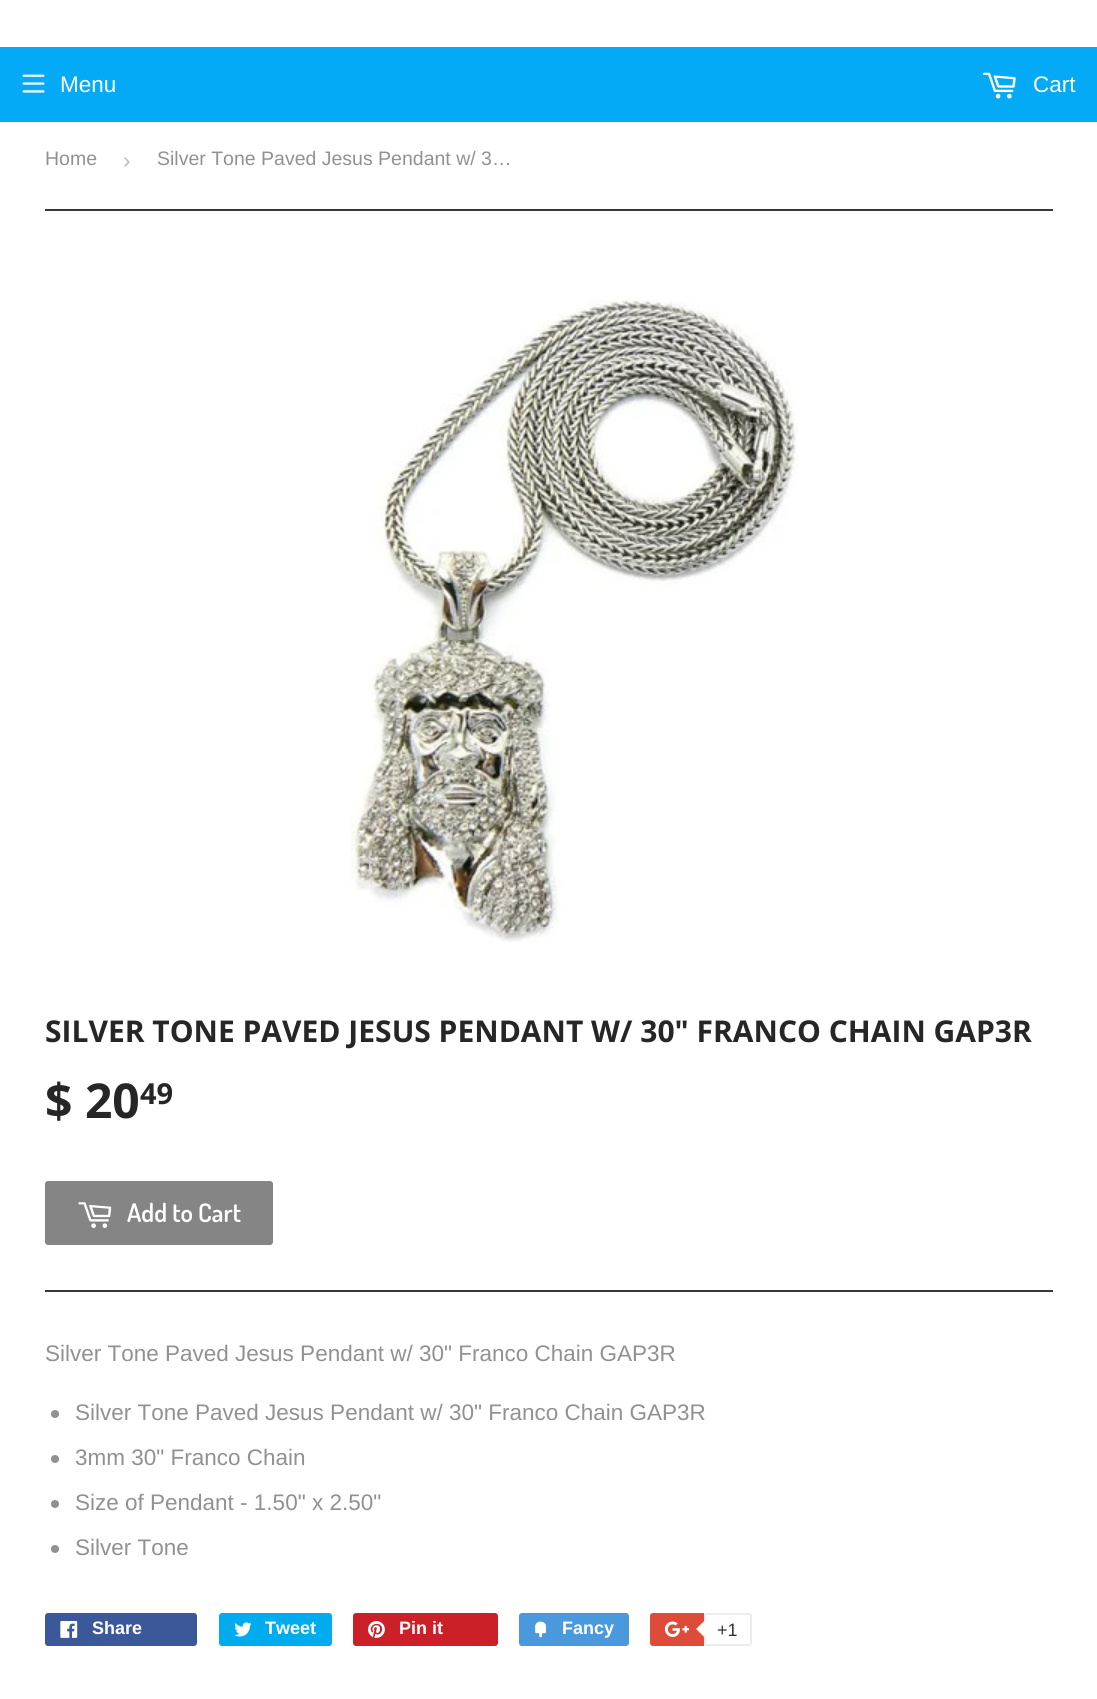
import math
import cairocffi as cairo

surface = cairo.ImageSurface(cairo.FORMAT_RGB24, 1097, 1699)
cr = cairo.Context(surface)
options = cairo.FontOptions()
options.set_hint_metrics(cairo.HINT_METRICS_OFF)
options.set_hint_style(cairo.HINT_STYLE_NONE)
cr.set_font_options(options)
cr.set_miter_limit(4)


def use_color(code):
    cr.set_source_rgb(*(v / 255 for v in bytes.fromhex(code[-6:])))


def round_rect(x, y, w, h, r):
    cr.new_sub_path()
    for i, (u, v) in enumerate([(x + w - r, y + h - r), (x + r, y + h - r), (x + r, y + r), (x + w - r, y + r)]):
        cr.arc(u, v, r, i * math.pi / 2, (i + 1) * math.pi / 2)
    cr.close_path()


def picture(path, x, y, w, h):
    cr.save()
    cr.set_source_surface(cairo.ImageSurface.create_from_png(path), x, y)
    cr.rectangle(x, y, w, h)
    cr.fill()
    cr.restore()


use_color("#ffffff")
cr.paint()
use_color("#04aaf5")
cr.rectangle(0, 47, 1097, 75)
cr.fill()
picture("img1.png", 22, 74, 23, 19)
cr.select_font_face("Liberation Sans")
cr.set_font_size(22.5)
use_color("#ffffff")
cr.move_to(60, 92)
cr.show_text("Menu")
picture("img2.png", 982, 72, 34, 27)
cr.move_to(1033, 92)
cr.show_text("Cart")
use_color("#383838")
cr.rectangle(45, 209, 1008, 2)
cr.fill()
cr.set_font_size(19.5)
use_color("#919191")
cr.move_to(45, 165)
cr.show_text("Home")
cr.set_font_size(22.5)
use_color("#bbbbbb")
cr.move_to(123, 168)
cr.show_text("›")
cr.set_font_size(19.5)
use_color("#919191")
cr.move_to(157, 165)
cr.show_text("Silver Tone Paved Jesus Pendant w/ 3…")
picture("img3.png", 351, 297, 448, 646)
cr.select_font_face("Open Sans", cairo.FONT_SLANT_NORMAL, cairo.FONT_WEIGHT_BOLD)
cr.set_font_size(30)
use_color("#262626")
cr.move_to(45, 1042)
cr.show_text("SILVER TONE PAVED JESUS PENDANT W/ 30\" FRANCO CHAIN GAP3R")
cr.set_font_size(48)
cr.move_to(45, 1118)
cr.show_text("$ 20")
cr.set_font_size(29)
cr.move_to(140, 1104)
cr.show_text("49")
use_color("#858585")
round_rect(45, 1181, 228, 64, 3)
cr.fill()
picture("img4.png", 78, 1202, 34, 26)
cr.select_font_face("Dosis SemiBold")
cr.set_font_size(25.5)
use_color("#ffffff")
cr.move_to(127, 1222)
cr.show_text("Add to Cart")
use_color("#383838")
cr.rectangle(45, 1290, 1008, 2)
cr.fill()
cr.select_font_face("Liberation Sans")
cr.set_font_size(22.5)
use_color("#919191")
cr.move_to(45, 1361)
cr.show_text("Silver Tone Paved Jesus Pendant w/ 30\" Franco Chain GAP3R")
cr.new_path()
cr.arc(55, 1414, 4, 0, 2 * math.pi)
cr.fill()
cr.move_to(75, 1420)
cr.show_text("Silver Tone Paved Jesus Pendant w/ 30\" Franco Chain GAP3R")
cr.new_path()
cr.arc(55, 1459, 4, 0, 2 * math.pi)
cr.fill()
cr.move_to(75, 1465)
cr.show_text("3mm 30\" Franco Chain")
cr.new_path()
cr.arc(55, 1504, 4, 0, 2 * math.pi)
cr.fill()
cr.move_to(75, 1510)
cr.show_text("Size of Pendant - 1.50\" x 2.50\"")
cr.new_path()
cr.arc(55, 1549, 4, 0, 2 * math.pi)
cr.fill()
cr.move_to(75, 1555)
cr.show_text("Silver Tone")
use_color("#3b5998")
round_rect(45, 1613, 152, 33, 3)
cr.fill()
picture("img5.png", 60, 1621, 18, 17)
cr.select_font_face("Liberation Sans", cairo.FONT_SLANT_NORMAL, cairo.FONT_WEIGHT_BOLD)
cr.set_font_size(18)
use_color("#ffffff")
cr.move_to(92, 1634)
cr.show_text("Share")
use_color("#00aced")
round_rect(219, 1613, 113, 33, 3)
cr.fill()
picture("img6.png", 234, 1622, 18, 15)
use_color("#ffffff")
cr.move_to(265, 1634)
cr.show_text("Tweet")
use_color("#cb2027")
round_rect(353, 1613, 145, 33, 3)
cr.fill()
picture("img7.png", 368, 1621, 17, 17)
use_color("#ffffff")
cr.move_to(399, 1634)
cr.show_text("Pin it")
use_color("#4999dc")
round_rect(519, 1613, 110, 33, 3)
cr.fill()
picture("img8.png", 535, 1621, 12, 17)
use_color("#ffffff")
cr.move_to(562, 1634)
cr.show_text("Fancy")
use_color("#dd4b39")
round_rect(650, 1613, 99, 33, 3)
cr.fill()
picture("img9.png", 664, 1621, 25, 16)
use_color("#ffffff")
cr.new_path()
cr.move_to(705, 1614)
cr.line_to(749, 1614)
cr.curve_to(750, 1614, 751, 1615, 751, 1616)
cr.line_to(751, 1643)
cr.curve_to(751, 1644, 750, 1645, 749, 1645)
cr.line_to(705, 1645)
cr.close_path()
cr.fill_preserve()
use_color("#ececec")
cr.stroke()
cr.new_path()
cr.move_to(705, 1620)
cr.line_to(705, 1638)
cr.line_to(696, 1629)
cr.close_path()
cr.fill()
use_color("#ffffff")
cr.new_path()
cr.move_to(706.5, 1620)
cr.line_to(706.5, 1638)
cr.line_to(697.5, 1629)
cr.close_path()
cr.fill()
cr.select_font_face("Liberation Sans")
use_color("#333333")
cr.move_to(717, 1636)
cr.show_text("+1")
surface.write_to_png("result.png")
